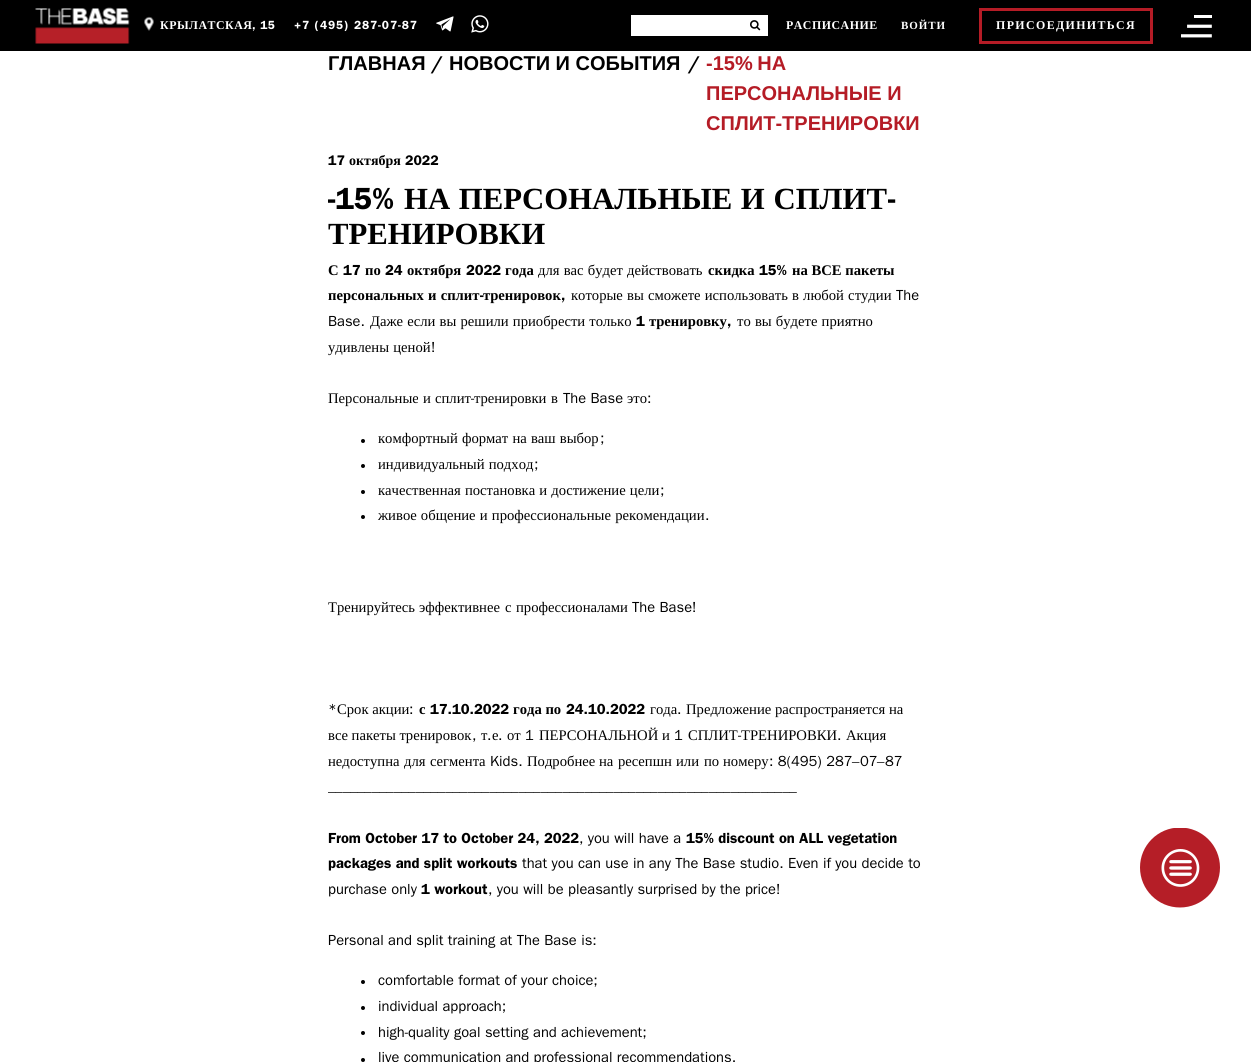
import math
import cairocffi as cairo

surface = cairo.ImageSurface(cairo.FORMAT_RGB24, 1251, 1062)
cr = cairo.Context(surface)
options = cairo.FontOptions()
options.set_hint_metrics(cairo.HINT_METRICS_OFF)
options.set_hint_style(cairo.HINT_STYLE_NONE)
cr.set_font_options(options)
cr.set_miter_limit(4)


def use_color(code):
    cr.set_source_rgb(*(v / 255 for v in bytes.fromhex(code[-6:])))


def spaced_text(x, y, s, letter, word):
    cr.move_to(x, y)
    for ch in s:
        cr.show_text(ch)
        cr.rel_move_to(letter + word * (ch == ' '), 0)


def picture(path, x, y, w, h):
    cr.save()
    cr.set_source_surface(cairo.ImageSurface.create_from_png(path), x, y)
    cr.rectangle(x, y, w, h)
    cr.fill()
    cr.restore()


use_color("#ffffff")
cr.paint()
use_color("#000000")
cr.rectangle(0, 0, 1251, 51)
cr.fill()
picture("img1.png", 144, 16, 10, 15)
cr.select_font_face("Liberation Serif", cairo.FONT_SLANT_NORMAL, cairo.FONT_WEIGHT_BOLD)
cr.set_font_size(11.9)
use_color("#ffffff")
spaced_text(160, 29, "КРЫЛАТСКАЯ", 0.5, 0)
cr.select_font_face("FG", cairo.FONT_SLANT_NORMAL, cairo.FONT_WEIGHT_BOLD)
spaced_text(252, 29, ", 15", 0.5, 0)
spaced_text(294, 29, "+7 (495) 287-07-87", 0.9, 0)
picture("img2.png", 436, 16, 18, 16)
picture("img3.png", 471, 15, 18, 18)
picture("img4.png", 35, 7, 95, 37)
cr.rectangle(631, 15, 137, 21)
cr.fill()
picture("img5.png", 750, 20, 11, 11)
cr.select_font_face("Liberation Serif", cairo.FONT_SLANT_NORMAL, cairo.FONT_WEIGHT_BOLD)
spaced_text(786, 29, "РАСПИСАНИЕ", 0.5, 0)
cr.set_font_size(11)
spaced_text(901, 29, "ВОЙТИ", 0.9, 0)
cr.rectangle(980.5, 9.5, 171, 33)
use_color("#b51c26")
cr.set_line_width(3)
cr.stroke()
cr.set_font_size(11.9)
use_color("#ffffff")
spaced_text(996, 29, "ПРИСОЕДИНИТЬСЯ", 1.4, 0)
picture("img6.png", 1181, 15, 31, 23)
cr.select_font_face("Liberation Sans", cairo.FONT_SLANT_NORMAL, cairo.FONT_WEIGHT_BOLD)
cr.set_font_size(20)
use_color("#000000")
cr.move_to(328, 70)
cr.show_text("ГЛАВНАЯ")
cr.select_font_face("FG", cairo.FONT_SLANT_NORMAL, cairo.FONT_WEIGHT_BOLD)
cr.move_to(431, 70)
cr.show_text("/")
cr.select_font_face("Liberation Sans", cairo.FONT_SLANT_NORMAL, cairo.FONT_WEIGHT_BOLD)
cr.move_to(449, 70)
cr.show_text("НОВОСТИ И СОБЫТИЯ")
cr.select_font_face("FG", cairo.FONT_SLANT_NORMAL, cairo.FONT_WEIGHT_BOLD)
cr.move_to(688, 70)
cr.show_text("/")
cr.select_font_face("Liberation Sans", cairo.FONT_SLANT_NORMAL, cairo.FONT_WEIGHT_BOLD)
use_color("#b51c26")
spaced_text(706, 70, "-15% НА", 0, -1)
cr.move_to(706, 100)
cr.show_text("ПЕРСОНАЛЬНЫЕ И")
cr.move_to(706, 130)
cr.show_text("СПЛИТ-ТРЕНИРОВКИ")
cr.select_font_face("FG", cairo.FONT_SLANT_NORMAL, cairo.FONT_WEIGHT_BOLD)
cr.set_font_size(14)
use_color("#000000")
cr.move_to(328, 165)
cr.show_text("17")
cr.select_font_face("Liberation Serif", cairo.FONT_SLANT_NORMAL, cairo.FONT_WEIGHT_BOLD)
cr.move_to(349, 165)
cr.show_text("октября")
cr.select_font_face("FG", cairo.FONT_SLANT_NORMAL, cairo.FONT_WEIGHT_BOLD)
cr.move_to(405, 165)
cr.show_text("2022")
cr.set_font_size(30.75)
cr.move_to(328, 209)
cr.show_text("-15%")
cr.select_font_face("Liberation Serif", cairo.FONT_SLANT_NORMAL, cairo.FONT_WEIGHT_BOLD)
spaced_text(404, 209, "НА ПЕРСОНАЛЬНЫЕ И СПЛИТ", 0, 1)
cr.select_font_face("FG", cairo.FONT_SLANT_NORMAL, cairo.FONT_WEIGHT_BOLD)
cr.move_to(888, 209)
cr.show_text("-")
cr.select_font_face("Liberation Serif", cairo.FONT_SLANT_NORMAL, cairo.FONT_WEIGHT_BOLD)
cr.move_to(328, 244)
cr.show_text("ТРЕНИРОВКИ")
cr.set_font_size(14.65)
cr.move_to(328, 275)
cr.show_text("С")
cr.select_font_face("FG", cairo.FONT_SLANT_NORMAL, cairo.FONT_WEIGHT_BOLD)
cr.move_to(343, 275)
cr.show_text("17")
cr.select_font_face("Liberation Serif", cairo.FONT_SLANT_NORMAL, cairo.FONT_WEIGHT_BOLD)
cr.move_to(365, 275)
cr.show_text("по")
cr.select_font_face("FG", cairo.FONT_SLANT_NORMAL, cairo.FONT_WEIGHT_BOLD)
cr.move_to(385, 275)
cr.show_text("24")
cr.select_font_face("Liberation Serif", cairo.FONT_SLANT_NORMAL, cairo.FONT_WEIGHT_BOLD)
cr.move_to(407, 275)
cr.show_text("октября")
cr.select_font_face("FG", cairo.FONT_SLANT_NORMAL, cairo.FONT_WEIGHT_BOLD)
cr.move_to(466, 275)
cr.show_text("2022")
cr.select_font_face("Liberation Serif", cairo.FONT_SLANT_NORMAL, cairo.FONT_WEIGHT_BOLD)
cr.move_to(505, 275)
cr.show_text("года")
cr.select_font_face("Liberation Serif")
spaced_text(538, 275, "для вас будет действовать", 0, 0.5)
cr.select_font_face("Liberation Serif", cairo.FONT_SLANT_NORMAL, cairo.FONT_WEIGHT_BOLD)
cr.move_to(708, 275)
cr.show_text("скидка")
cr.select_font_face("FG", cairo.FONT_SLANT_NORMAL, cairo.FONT_WEIGHT_BOLD)
cr.move_to(759, 275)
cr.show_text("15%")
cr.select_font_face("Liberation Serif", cairo.FONT_SLANT_NORMAL, cairo.FONT_WEIGHT_BOLD)
cr.move_to(792, 275)
cr.show_text("на ВСЕ пакеты")
spaced_text(328, 300, "персональных и сплит", 0, 0.5)
cr.select_font_face("FG", cairo.FONT_SLANT_NORMAL, cairo.FONT_WEIGHT_BOLD)
cr.move_to(480, 300)
cr.show_text("-")
cr.select_font_face("Liberation Serif", cairo.FONT_SLANT_NORMAL, cairo.FONT_WEIGHT_BOLD)
cr.move_to(483, 300)
cr.show_text("тренировок")
cr.select_font_face("Liberation Serif")
spaced_text(571, 300, "которые вы сможете использовать в любой студии", 0, 0.5)
cr.select_font_face("FG")
cr.move_to(896, 300)
cr.show_text("The")
cr.select_font_face("FG", cairo.FONT_SLANT_NORMAL, cairo.FONT_WEIGHT_BOLD)
cr.move_to(561, 300)
cr.show_text(",")
cr.select_font_face("FG")
cr.move_to(328, 326)
cr.show_text("Base.")
cr.select_font_face("Liberation Serif")
spaced_text(370, 326, "Даже если вы решили приобрести только", 0, 0.5)
cr.select_font_face("FG", cairo.FONT_SLANT_NORMAL, cairo.FONT_WEIGHT_BOLD)
cr.move_to(636, 326)
cr.show_text("1")
cr.select_font_face("Liberation Serif", cairo.FONT_SLANT_NORMAL, cairo.FONT_WEIGHT_BOLD)
cr.move_to(649, 326)
cr.show_text("тренировку")
cr.select_font_face("FG", cairo.FONT_SLANT_NORMAL, cairo.FONT_WEIGHT_BOLD)
cr.move_to(727, 326)
cr.show_text(",")
cr.select_font_face("Liberation Serif")
spaced_text(737, 326, "то вы будете приятно", 0, 0.5)
spaced_text(328, 352, "удивлены ценой", 0, 0.5)
cr.select_font_face("FG")
cr.move_to(431, 352)
cr.show_text("!")
cr.select_font_face("Liberation Serif")
cr.move_to(328, 403)
cr.show_text("Персональные")
cr.move_to(423, 403)
cr.show_text("и")
cr.move_to(435, 403)
cr.show_text("сплит")
cr.select_font_face("FG")
cr.move_to(471, 403)
cr.show_text("-")
cr.select_font_face("Liberation Serif")
cr.move_to(474, 403)
cr.show_text("тренировки")
cr.move_to(551, 403)
cr.show_text("в")
cr.select_font_face("FG")
cr.move_to(563, 403)
cr.show_text("The Base")
cr.select_font_face("Liberation Serif")
cr.move_to(627, 403)
cr.show_text("это")
cr.select_font_face("FG")
cr.move_to(647, 403)
cr.show_text(":")
cr.new_path()
cr.arc(363, 441, 2, 0, 2 * math.pi)
cr.fill()
cr.select_font_face("Liberation Serif")
spaced_text(378, 443, "комфортный формат на ваш выбор", 0, 0.5)
cr.select_font_face("FG")
cr.move_to(600, 443)
cr.show_text(";")
cr.new_path()
cr.arc(363, 466, 2, 0, 2 * math.pi)
cr.fill()
cr.select_font_face("Liberation Serif")
spaced_text(378, 469, "индивидуальный подход", 0, 0.5)
cr.select_font_face("FG")
cr.move_to(534, 469)
cr.show_text(";")
cr.new_path()
cr.arc(363, 492, 2, 0, 2 * math.pi)
cr.fill()
cr.select_font_face("Liberation Serif")
spaced_text(378, 495, "качественная постановка и достижение цели", 0, 0.5)
cr.select_font_face("FG")
cr.move_to(660, 495)
cr.show_text(";")
cr.new_path()
cr.arc(363, 517, 2, 0, 2 * math.pi)
cr.fill()
cr.select_font_face("Liberation Serif")
spaced_text(378, 520, "живое общение и профессиональные рекомендации", 0, 0.5)
cr.select_font_face("FG")
cr.move_to(705, 520)
cr.show_text(".")
cr.select_font_face("Liberation Serif")
cr.move_to(328, 612)
cr.show_text("Тренируйтесь")
cr.move_to(419, 612)
cr.show_text("эффективнее")
cr.move_to(505, 612)
cr.show_text("с")
cr.move_to(516, 612)
cr.show_text("профессионалами")
cr.select_font_face("FG")
cr.move_to(632, 612)
cr.show_text("The Base!")
cr.move_to(328, 714)
cr.show_text("*")
cr.select_font_face("Liberation Serif")
cr.move_to(337, 714)
cr.show_text("Срок акции")
cr.select_font_face("FG")
cr.move_to(409, 714)
cr.show_text(":")
cr.select_font_face("Liberation Serif", cairo.FONT_SLANT_NORMAL, cairo.FONT_WEIGHT_BOLD)
cr.move_to(419, 714)
cr.show_text("с")
cr.select_font_face("FG", cairo.FONT_SLANT_NORMAL, cairo.FONT_WEIGHT_BOLD)
cr.move_to(430, 714)
cr.show_text("17.10.2022")
cr.select_font_face("Liberation Serif", cairo.FONT_SLANT_NORMAL, cairo.FONT_WEIGHT_BOLD)
cr.move_to(513, 714)
cr.show_text("года по")
cr.select_font_face("FG", cairo.FONT_SLANT_NORMAL, cairo.FONT_WEIGHT_BOLD)
cr.move_to(566, 714)
cr.show_text("24.10.2022")
cr.select_font_face("Liberation Serif")
cr.move_to(650, 714)
cr.show_text("года")
cr.select_font_face("FG")
cr.move_to(677, 714)
cr.show_text(".")
cr.select_font_face("Liberation Serif")
cr.move_to(686, 714)
cr.show_text("Предложение распространяется на")
cr.move_to(328, 740)
cr.show_text("все пакеты тренировок")
cr.move_to(481, 740)
cr.show_text("т")
cr.move_to(492, 740)
cr.show_text("е")
cr.move_to(507, 740)
cr.show_text("от")
cr.select_font_face("FG")
cr.move_to(525, 740)
cr.show_text("1")
cr.select_font_face("Liberation Serif")
cr.move_to(539, 740)
cr.show_text("ПЕРСОНАЛЬНОЙ и")
cr.select_font_face("FG")
cr.move_to(674, 740)
cr.show_text("1")
cr.select_font_face("Liberation Serif")
cr.move_to(688, 740)
cr.show_text("СПЛИТ")
cr.select_font_face("FG")
cr.move_to(738, 740)
cr.show_text("-")
cr.select_font_face("Liberation Serif")
cr.move_to(741, 740)
cr.show_text("ТРЕНИРОВКИ")
cr.move_to(846, 740)
cr.show_text("Акция")
cr.select_font_face("FG")
cr.move_to(472, 740)
cr.show_text(",")
cr.move_to(487, 740)
cr.show_text(".")
cr.move_to(498, 740)
cr.show_text(".")
cr.move_to(837, 740)
cr.show_text(".")
cr.select_font_face("Liberation Serif")
cr.move_to(328, 766)
cr.show_text("недоступна")
cr.move_to(404, 766)
cr.show_text("для")
cr.move_to(430, 766)
cr.show_text("сегмента")
cr.select_font_face("FG")
cr.move_to(490, 766)
cr.show_text("Kids.")
cr.select_font_face("Liberation Serif")
cr.move_to(527, 766)
cr.show_text("Подробнее")
cr.move_to(599, 766)
cr.show_text("на")
cr.move_to(618, 766)
cr.show_text("ресепшн")
cr.move_to(676, 766)
cr.show_text("или")
cr.move_to(704, 766)
cr.show_text("по")
cr.move_to(723, 766)
cr.show_text("номеру")
cr.select_font_face("FG")
cr.move_to(769, 766)
cr.show_text(": 8(495) 287")
cr.select_font_face("Liberation Serif")
cr.move_to(852, 766)
cr.show_text("‒")
cr.select_font_face("FG")
cr.move_to(860, 766)
cr.show_text("07")
cr.select_font_face("Liberation Serif")
cr.move_to(877, 766)
cr.show_text("‒")
cr.select_font_face("FG")
cr.move_to(885, 766)
cr.show_text("87")
cr.move_to(328, 791)
cr.show_text("________________________________________________________________")
cr.select_font_face("FG", cairo.FONT_SLANT_NORMAL, cairo.FONT_WEIGHT_BOLD)
cr.move_to(328, 843)
cr.show_text("From October 17 to October 24, 2022")
cr.select_font_face("FG")
cr.move_to(579, 843)
cr.show_text(", you will have a")
cr.select_font_face("FG", cairo.FONT_SLANT_NORMAL, cairo.FONT_WEIGHT_BOLD)
cr.move_to(686, 843)
cr.show_text("15% discount on ALL vegetation")
cr.move_to(328, 868)
cr.show_text("packages and split workouts")
cr.select_font_face("FG")
cr.move_to(522, 868)
cr.show_text("that you can use in any The Base studio. Even if you decide to")
cr.move_to(328, 894)
cr.show_text("purchase only")
cr.select_font_face("FG", cairo.FONT_SLANT_NORMAL, cairo.FONT_WEIGHT_BOLD)
cr.move_to(421, 894)
cr.show_text("1 workout")
cr.select_font_face("FG")
cr.move_to(488, 894)
cr.show_text(", you will be pleasantly surprised by the price!")
cr.move_to(328, 945)
cr.show_text("Personal and split training at The Base is:")
cr.new_path()
cr.arc(363, 982, 2, 0, 2 * math.pi)
cr.fill()
cr.move_to(378, 985)
cr.show_text("comfortable format of your choice;")
cr.new_path()
cr.arc(363, 1008, 2, 0, 2 * math.pi)
cr.fill()
cr.move_to(378, 1011)
cr.show_text("individual approach;")
cr.new_path()
cr.arc(363, 1033, 2, 0, 2 * math.pi)
cr.fill()
cr.move_to(378, 1037)
cr.show_text("high-quality goal setting and achievement;")
cr.new_path()
cr.arc(363, 1060, 2, 0, 2 * math.pi)
cr.fill()
cr.move_to(378, 1062)
cr.show_text("live communication and professional recommendations.")
picture("img7.png", 1140, 828, 80, 80)
surface.write_to_png("result.png")
